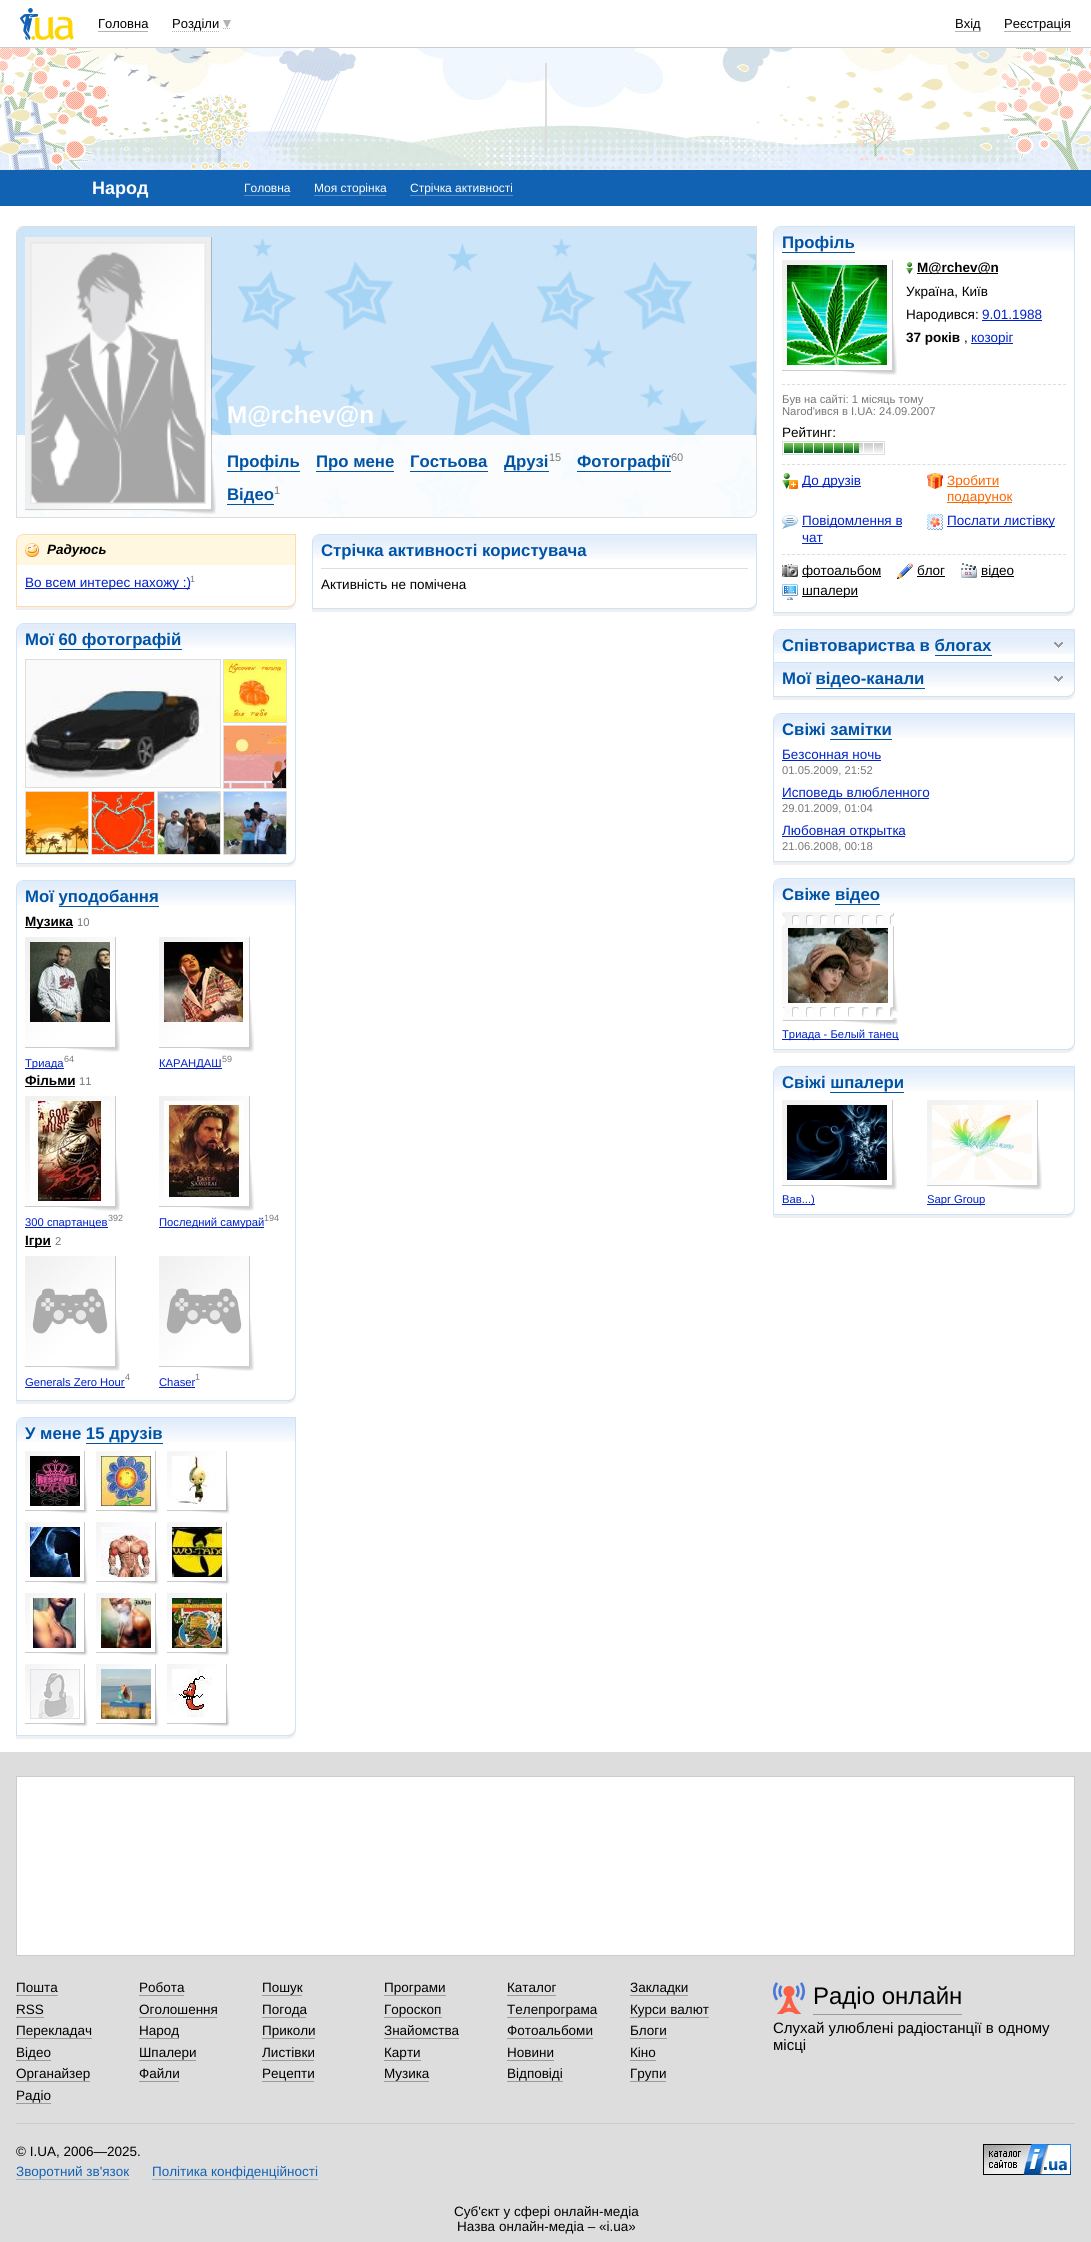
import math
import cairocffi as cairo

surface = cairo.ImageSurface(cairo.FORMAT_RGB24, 1091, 2242)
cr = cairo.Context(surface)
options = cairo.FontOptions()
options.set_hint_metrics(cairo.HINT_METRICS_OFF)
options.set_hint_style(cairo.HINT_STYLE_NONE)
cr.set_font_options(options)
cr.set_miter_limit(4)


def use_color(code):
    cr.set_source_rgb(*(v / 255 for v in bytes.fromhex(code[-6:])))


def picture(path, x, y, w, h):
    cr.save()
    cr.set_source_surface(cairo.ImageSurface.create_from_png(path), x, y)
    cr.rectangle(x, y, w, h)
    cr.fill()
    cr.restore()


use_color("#ffffff")
cr.paint()
use_color("#cccccc")
cr.rectangle(0, 47, 1091, 1)
cr.fill()
picture("img1.png", 20, 8, 54, 32)
cr.select_font_face("Liberation Sans")
cr.set_font_size(13)
use_color("#000000")
cr.move_to(98, 28)
cr.show_text("Головна")
use_color("#b3b3b3")
cr.rectangle(98, 31, 50, 1)
cr.fill()
cr.new_path()
cr.move_to(172, 31.5)
cr.line_to(219, 31.5)
cr.move_to(223, 28.5)
cr.line_to(231, 28.5)
cr.set_line_width(1)
cr.set_dash([1, 1])
cr.stroke()
use_color("#000000")
cr.move_to(172, 28)
cr.show_text("Розділи")
use_color("#b3b3b3")
cr.new_path()
cr.move_to(223, 20)
cr.line_to(231, 20)
cr.line_to(227, 28)
cr.close_path()
cr.fill()
use_color("#000000")
cr.move_to(955, 28)
cr.show_text("Вхід")
use_color("#b3b3b3")
cr.rectangle(955, 31, 26, 1)
cr.fill()
use_color("#000000")
cr.move_to(1004, 28)
cr.show_text("Реєстрація")
use_color("#b3b3b3")
cr.rectangle(1004, 31, 67, 1)
cr.fill()
picture("img2.png", 0, 48, 1091, 122)
use_color("#dddddd")
cr.rectangle(545, 63, 2, 92)
cr.fill()
use_color("#1162b3")
cr.rectangle(0, 170, 1091, 36)
cr.fill()
cr.select_font_face("Liberation Sans", cairo.FONT_SLANT_NORMAL, cairo.FONT_WEIGHT_BOLD)
cr.set_font_size(18)
use_color("#ffffff")
cr.move_to(92, 194)
cr.show_text("Народ")
cr.select_font_face("Liberation Sans")
cr.set_font_size(12)
cr.move_to(244, 192)
cr.show_text("Головна")
use_color("#5891ca")
cr.rectangle(244, 195, 46, 1)
cr.fill()
use_color("#ffffff")
cr.move_to(314, 192)
cr.show_text("Моя сторінка")
use_color("#5891ca")
cr.rectangle(314, 195, 72, 1)
cr.fill()
use_color("#ffffff")
cr.move_to(410, 192)
cr.show_text("Стрічка активності")
use_color("#5891ca")
cr.rectangle(410, 195, 103, 1)
cr.fill()
cr.rectangle(16.5, 226.5, 740, 291)
use_color("#dddddd")
cr.set_dash([])
cr.stroke()
picture("img4.png", 17, 227, 739, 290)
picture("img3.png", 16, 226, 7, 7)
cr.set_source_rgba(1, 1, 1, 0.9)
cr.rectangle(17, 435, 739, 82)
cr.fill()
picture("img5.png", 25, 237, 191, 277)
picture("img6.png", 30, 242, 176, 262)
cr.select_font_face("Liberation Sans", cairo.FONT_SLANT_NORMAL, cairo.FONT_WEIGHT_BOLD)
cr.set_font_size(24.25)
use_color("#ffffff")
cr.move_to(227, 423)
cr.show_text("M@rchev@n")
cr.set_font_size(16.75)
use_color("#0053a5")
cr.move_to(227, 467)
cr.show_text("Профіль")
cr.rectangle(227, 471, 73, 1)
cr.fill()
cr.move_to(316, 467)
cr.show_text("Про мене")
cr.rectangle(316, 471, 78, 1)
cr.fill()
cr.move_to(410, 467)
cr.show_text("Гостьова")
cr.rectangle(410, 471, 78, 1)
cr.fill()
cr.move_to(504, 467)
cr.show_text("Друзі")
cr.rectangle(504, 471, 45, 1)
cr.fill()
cr.select_font_face("Liberation Sans")
cr.set_font_size(11)
use_color("#777777")
cr.move_to(549, 461)
cr.show_text("15")
cr.select_font_face("Liberation Sans", cairo.FONT_SLANT_NORMAL, cairo.FONT_WEIGHT_BOLD)
cr.set_font_size(16.75)
use_color("#0053a5")
cr.move_to(577, 467)
cr.show_text("Фотографії")
cr.rectangle(577, 471, 94, 1)
cr.fill()
cr.select_font_face("Liberation Sans")
cr.set_font_size(11)
use_color("#777777")
cr.move_to(671, 461)
cr.show_text("60")
cr.select_font_face("Liberation Sans", cairo.FONT_SLANT_NORMAL, cairo.FONT_WEIGHT_BOLD)
cr.set_font_size(16.75)
use_color("#0053a5")
cr.move_to(227, 500)
cr.show_text("Відео")
cr.rectangle(227, 504, 47, 1)
cr.fill()
cr.select_font_face("Liberation Sans")
cr.set_font_size(11)
use_color("#777777")
cr.move_to(274, 494)
cr.show_text("1")
picture("img7.png", 750, 511, 7, 7)
use_color("#f0f0f0")
cr.rectangle(16, 607, 280, 3)
cr.fill()
cr.rectangle(16.5, 534.5, 279, 72)
use_color("#ffddaa")
cr.stroke()
use_color("#fff7df")
cr.rectangle(17, 535, 278, 30)
cr.fill()
picture("img8.png", 16, 534, 8, 8)
picture("img9.png", 25, 543, 14, 14)
cr.select_font_face("Liberation Sans", cairo.FONT_SLANT_ITALIC, cairo.FONT_WEIGHT_BOLD)
cr.set_font_size(13.5)
use_color("#000000")
cr.move_to(47, 554)
cr.show_text("Радуюсь")
use_color("#0022cc")
cr.rectangle(25, 588, 165, 1)
cr.fill()
cr.select_font_face("Liberation Sans")
cr.move_to(25, 587)
cr.show_text("Во всем интерес нахожу :)")
cr.set_font_size(9)
use_color("#777777")
cr.move_to(190, 582)
cr.show_text("1")
picture("img10.png", 288, 599, 8, 11)
use_color("#f0f0f0")
cr.rectangle(16, 864, 280, 3)
cr.fill()
picture("img12.png", 17, 624, 278, 24)
cr.rectangle(16.5, 623.5, 279, 240)
use_color("#cee3f7")
cr.stroke()
picture("img11.png", 16, 623, 7, 7)
cr.select_font_face("Liberation Sans", cairo.FONT_SLANT_NORMAL, cairo.FONT_WEIGHT_BOLD)
cr.set_font_size(16.75)
use_color("#0053a5")
cr.move_to(25, 645)
cr.show_text("Мої 60 фотографій")
cr.rectangle(59, 649, 123, 1)
cr.fill()
cr.rectangle(25.5, 659.5, 195, 128)
use_color("#dddddd")
cr.stroke()
picture("img13.png", 26, 660, 194, 127)
cr.rectangle(223.5, 659.5, 63, 63)
cr.stroke()
picture("img14.png", 224, 660, 62, 62)
cr.rectangle(223.5, 725.5, 63, 63)
cr.stroke()
picture("img15.png", 224, 726, 62, 62)
cr.rectangle(25.5, 791.5, 63, 63)
cr.stroke()
picture("img16.png", 26, 792, 62, 62)
cr.rectangle(91.5, 791.5, 63, 63)
cr.stroke()
picture("img17.png", 92, 792, 62, 62)
cr.rectangle(157.5, 791.5, 63, 63)
cr.stroke()
picture("img18.png", 158, 792, 62, 62)
cr.rectangle(223.5, 791.5, 63, 63)
cr.stroke()
picture("img19.png", 224, 792, 62, 62)
picture("img20.png", 288, 857, 8, 10)
use_color("#f0f0f0")
cr.rectangle(16, 1401, 280, 3)
cr.fill()
picture("img12.png", 17, 881, 278, 24)
cr.rectangle(16.5, 880.5, 279, 520)
use_color("#cee3f7")
cr.stroke()
picture("img11.png", 16, 880, 7, 7)
use_color("#0053a5")
cr.move_to(25, 902)
cr.show_text("Мої уподобання")
cr.rectangle(59, 906, 100, 1)
cr.fill()
use_color("#000000")
cr.rectangle(25, 927, 48, 1)
cr.fill()
cr.set_font_size(13.5)
cr.move_to(25, 926)
cr.show_text("Музика")
cr.select_font_face("Liberation Sans")
cr.set_font_size(11.25)
use_color("#777777")
cr.move_to(77, 926)
cr.show_text("10")
picture("img21.png", 25, 937, 95, 115)
picture("img22.png", 30, 942, 80, 80)
use_color("#0022cc")
cr.rectangle(25, 1068, 39, 1)
cr.fill()
cr.move_to(25, 1067)
cr.show_text("Триада")
cr.set_font_size(9)
use_color("#777777")
cr.move_to(64, 1062)
cr.show_text("64")
picture("img21.png", 159, 937, 95, 115)
picture("img23.png", 164, 942, 79, 80)
use_color("#0022cc")
cr.rectangle(159, 1068, 63, 1)
cr.fill()
cr.set_font_size(11.25)
cr.move_to(159, 1067)
cr.show_text("КАРАНДАШ")
cr.set_font_size(9)
use_color("#777777")
cr.move_to(222, 1062)
cr.show_text("59")
cr.select_font_face("Liberation Sans", cairo.FONT_SLANT_NORMAL, cairo.FONT_WEIGHT_BOLD)
cr.set_font_size(13.5)
use_color("#000000")
cr.move_to(25, 1085)
cr.show_text("Фільми")
cr.rectangle(25, 1086, 50, 1)
cr.fill()
cr.select_font_face("Liberation Sans")
cr.set_font_size(11.25)
use_color("#777777")
cr.move_to(79, 1085)
cr.show_text("11")
picture("img21.png", 25, 1096, 95, 115)
picture("img24.png", 30, 1101, 80, 100)
use_color("#0022cc")
cr.rectangle(25, 1227, 83, 1)
cr.fill()
cr.move_to(25, 1226)
cr.show_text("300 спартанцев")
cr.set_font_size(9)
use_color("#777777")
cr.move_to(108, 1221)
cr.show_text("392")
picture("img21.png", 159, 1096, 95, 115)
picture("img25.png", 164, 1101, 80, 96)
use_color("#0022cc")
cr.rectangle(159, 1227, 105, 1)
cr.fill()
cr.set_font_size(11.25)
cr.move_to(159, 1226)
cr.show_text("Последний самурай")
cr.set_font_size(9)
use_color("#777777")
cr.move_to(264, 1221)
cr.show_text("194")
use_color("#000000")
cr.rectangle(25, 1246, 26, 1)
cr.fill()
cr.select_font_face("Liberation Sans", cairo.FONT_SLANT_NORMAL, cairo.FONT_WEIGHT_BOLD)
cr.set_font_size(13.5)
cr.move_to(25, 1245)
cr.show_text("Ігри")
cr.select_font_face("Liberation Sans")
cr.set_font_size(11.25)
use_color("#777777")
cr.move_to(55, 1245)
cr.show_text("2")
picture("img21.png", 25, 1256, 95, 115)
picture("img26.png", 32, 1288, 76, 46)
use_color("#0022cc")
cr.move_to(25, 1386)
cr.show_text("Generals Zero Hour")
cr.rectangle(25, 1387, 100, 1)
cr.fill()
cr.set_font_size(9)
use_color("#777777")
cr.move_to(125, 1380)
cr.show_text("4")
picture("img21.png", 159, 1256, 95, 115)
picture("img26.png", 166, 1288, 76, 46)
cr.set_font_size(11.25)
use_color("#0022cc")
cr.move_to(159, 1386)
cr.show_text("Chaser")
cr.rectangle(159, 1387, 36, 1)
cr.fill()
cr.set_font_size(9)
use_color("#777777")
cr.move_to(195, 1380)
cr.show_text("1")
picture("img20.png", 288, 1394, 8, 10)
use_color("#f0f0f0")
cr.rectangle(16, 1736, 280, 3)
cr.fill()
picture("img12.png", 17, 1418, 278, 24)
cr.rectangle(16.5, 1417.5, 279, 318)
use_color("#cee3f7")
cr.stroke()
picture("img11.png", 16, 1417, 7, 7)
cr.select_font_face("Liberation Sans", cairo.FONT_SLANT_NORMAL, cairo.FONT_WEIGHT_BOLD)
cr.set_font_size(16.75)
use_color("#0053a5")
cr.move_to(25, 1439)
cr.show_text("У мене 15 друзів")
cr.rectangle(86, 1443, 77, 1)
cr.fill()
picture("img27.png", 25, 1451, 63, 63)
picture("img28.png", 30, 1456, 50, 50)
picture("img27.png", 96, 1451, 63, 63)
picture("img29.png", 101, 1456, 50, 50)
picture("img27.png", 167, 1451, 63, 63)
picture("img30.png", 172, 1456, 45, 48)
picture("img27.png", 25, 1522, 63, 63)
picture("img31.png", 30, 1527, 50, 50)
picture("img27.png", 96, 1522, 63, 63)
picture("img32.png", 101, 1527, 50, 50)
picture("img27.png", 167, 1522, 63, 63)
picture("img33.png", 172, 1527, 50, 50)
picture("img27.png", 25, 1593, 63, 63)
picture("img34.png", 30, 1598, 48, 50)
picture("img27.png", 96, 1593, 63, 63)
picture("img35.png", 101, 1598, 50, 50)
picture("img27.png", 167, 1593, 63, 63)
picture("img36.png", 172, 1598, 50, 50)
picture("img27.png", 25, 1664, 63, 63)
picture("img37.png", 30, 1669, 50, 50)
picture("img27.png", 96, 1664, 63, 63)
picture("img38.png", 101, 1669, 50, 50)
picture("img27.png", 167, 1664, 63, 63)
picture("img39.png", 172, 1669, 40, 49)
picture("img20.png", 288, 1729, 8, 10)
use_color("#f0f0f0")
cr.rectangle(312, 609, 445, 3)
cr.fill()
picture("img40.png", 313, 535, 443, 24)
cr.rectangle(312.5, 534.5, 444, 74)
use_color("#cee3f7")
cr.stroke()
picture("img11.png", 312, 534, 7, 7)
use_color("#dddddd")
cr.rectangle(321, 568, 427, 1)
cr.fill()
use_color("#0053a5")
cr.move_to(321, 556)
cr.show_text("Стрічка активності користувача")
cr.select_font_face("Liberation Sans")
cr.set_font_size(13.5)
use_color("#000000")
cr.move_to(321, 589)
cr.show_text("Активність не помічена")
picture("img20.png", 749, 602, 8, 10)
use_color("#f0f0f0")
cr.rectangle(773, 613, 302, 3)
cr.fill()
picture("img41.png", 774, 227, 300, 24)
cr.rectangle(773.5, 226.5, 301, 386)
use_color("#cee3f7")
cr.stroke()
picture("img11.png", 773, 226, 7, 7)
cr.select_font_face("Liberation Sans", cairo.FONT_SLANT_NORMAL, cairo.FONT_WEIGHT_BOLD)
cr.set_font_size(16.75)
use_color("#0053a5")
cr.move_to(782, 248)
cr.show_text("Профіль")
cr.rectangle(782, 252, 73, 1)
cr.fill()
picture("img42.png", 782, 260, 115, 115)
picture("img43.png", 787, 265, 100, 100)
picture("img44.png", 906, 262, 7, 12)
use_color("#000000")
cr.rectangle(917, 273, 81, 1)
cr.fill()
cr.set_font_size(13.5)
cr.move_to(917, 272)
cr.show_text("M@rchev@n")
cr.select_font_face("Liberation Sans")
cr.move_to(906, 296)
cr.show_text("Україна, Київ")
cr.move_to(906, 319)
cr.show_text("Народився:")
use_color("#0022cc")
cr.move_to(982, 319)
cr.show_text("9.01.1988")
cr.rectangle(982, 320, 60, 1)
cr.fill()
cr.select_font_face("Liberation Sans", cairo.FONT_SLANT_NORMAL, cairo.FONT_WEIGHT_BOLD)
use_color("#000000")
cr.move_to(906, 342)
cr.show_text("37 років")
cr.select_font_face("Liberation Sans")
cr.move_to(964, 342)
cr.show_text(",")
use_color("#0022cc")
cr.rectangle(971, 343, 42, 1)
cr.fill()
cr.move_to(971, 342)
cr.show_text("козоріг")
cr.new_path()
cr.move_to(782, 384.5)
cr.line_to(1066, 384.5)
use_color("#dddddd")
cr.set_dash([3, 2.02])
cr.stroke()
cr.set_font_size(11.25)
use_color("#777777")
cr.move_to(782, 403)
cr.show_text("Був на сайті: 1 місяць тому")
cr.move_to(782, 415)
cr.show_text("Narod'ився в I.UA: 24.09.2007")
cr.set_font_size(13.5)
use_color("#000000")
cr.move_to(782, 437)
cr.show_text("Рейтинг:")
picture("img45.png", 859, 443, 24, 10)
cr.rectangle(782.5, 441.5, 102, 13)
use_color("#dddddd")
cr.set_dash([])
cr.stroke()
picture("img46.png", 784, 443, 75, 10)
cr.new_path()
cr.move_to(782, 464.5)
cr.line_to(1066, 464.5)
cr.set_dash([3, 2.02])
cr.stroke()
picture("img47.png", 782, 473, 16, 16)
use_color("#0022cc")
cr.rectangle(802, 486, 59, 1)
cr.fill()
cr.move_to(802, 485)
cr.show_text("До друзів")
picture("img48.png", 927, 473, 16, 16)
use_color("#ff6600")
cr.rectangle(947, 486, 52, 1)
cr.fill()
cr.move_to(947, 485)
cr.show_text("Зробити")
cr.rectangle(947, 502, 65, 1)
cr.fill()
cr.move_to(947, 501)
cr.show_text("подарунок")
picture("img49.png", 782, 515, 16, 14)
use_color("#0022cc")
cr.rectangle(802, 526, 100, 1)
cr.fill()
cr.move_to(802, 525)
cr.show_text("Повідомлення в")
cr.move_to(802, 542)
cr.show_text("чат")
cr.rectangle(802, 543, 21, 1)
cr.fill()
picture("img50.png", 927, 514, 16, 16)
cr.rectangle(947, 526, 108, 1)
cr.fill()
cr.move_to(947, 525)
cr.show_text("Послати листівку")
cr.new_path()
cr.move_to(782, 554.5)
cr.line_to(1066, 554.5)
use_color("#dddddd")
cr.stroke()
picture("img51.png", 782, 564, 16, 13)
use_color("#000000")
cr.rectangle(802, 576, 79, 1)
cr.fill()
cr.move_to(802, 575)
cr.show_text("фотоальбом")
picture("img52.png", 897, 563, 16, 16)
cr.move_to(917, 575)
cr.show_text("блог")
cr.rectangle(917, 576, 28, 1)
cr.fill()
picture("img53.png", 961, 563, 16, 15)
cr.rectangle(981, 576, 33, 1)
cr.fill()
cr.move_to(981, 575)
cr.show_text("відео")
picture("img54.png", 782, 584, 16, 16)
cr.rectangle(802, 596, 56, 1)
cr.fill()
cr.move_to(802, 595)
cr.show_text("шпалери")
picture("img20.png", 1067, 606, 8, 10)
use_color("#f0f0f0")
cr.rectangle(773, 697, 302, 3)
cr.fill()
picture("img41.png", 774, 630, 300, 24)
cr.rectangle(773.5, 629.5, 301, 67)
use_color("#cee3f7")
cr.set_dash([])
cr.stroke()
picture("img11.png", 773, 629, 7, 7)
picture("img55.png", 774, 637, 300, 17)
cr.select_font_face("Liberation Sans", cairo.FONT_SLANT_NORMAL, cairo.FONT_WEIGHT_BOLD)
cr.set_font_size(16.75)
use_color("#0053a5")
cr.move_to(782, 651)
cr.show_text("Співтовариства в блогах")
cr.rectangle(935, 655, 57, 1)
cr.fill()
picture("img56.png", 1054, 642, 9, 7)
picture("img41.png", 774, 663, 300, 24)
use_color("#cee3f7")
cr.rectangle(774, 662, 300, 1)
cr.fill()
use_color("#0053a5")
cr.move_to(782, 684)
cr.show_text("Мої відео-канали")
cr.rectangle(816, 688, 109, 1)
cr.fill()
picture("img57.png", 1054, 676, 9, 7)
picture("img20.png", 1067, 690, 8, 10)
use_color("#f0f0f0")
cr.rectangle(773, 862, 302, 3)
cr.fill()
picture("img41.png", 774, 714, 300, 24)
cr.rectangle(773.5, 713.5, 301, 148)
use_color("#cee3f7")
cr.stroke()
picture("img11.png", 773, 713, 7, 7)
use_color("#0053a5")
cr.move_to(782, 735)
cr.show_text("Свіжі замітки")
cr.rectangle(830, 739, 62, 1)
cr.fill()
cr.select_font_face("Liberation Sans")
cr.set_font_size(13.5)
use_color("#0022cc")
cr.move_to(782, 759)
cr.show_text("Безсонная ночь")
cr.rectangle(782, 760, 99, 1)
cr.fill()
cr.set_font_size(11.25)
use_color("#777777")
cr.move_to(782, 774)
cr.show_text("01.05.2009, 21:52")
use_color("#0022cc")
cr.rectangle(782, 798, 147, 1)
cr.fill()
cr.set_font_size(13.5)
cr.move_to(782, 797)
cr.show_text("Исповедь влюбленного")
cr.set_font_size(11.25)
use_color("#777777")
cr.move_to(782, 812)
cr.show_text("29.01.2009, 01:04")
use_color("#0022cc")
cr.rectangle(782, 836, 123, 1)
cr.fill()
cr.set_font_size(13.5)
cr.move_to(782, 835)
cr.show_text("Любовная открытка")
cr.set_font_size(11.25)
use_color("#777777")
cr.move_to(782, 850)
cr.show_text("21.06.2008, 00:18")
picture("img20.png", 1067, 855, 8, 10)
use_color("#f0f0f0")
cr.rectangle(773, 1050, 302, 3)
cr.fill()
picture("img41.png", 774, 879, 300, 24)
cr.rectangle(773.5, 878.5, 301, 171)
use_color("#cee3f7")
cr.stroke()
picture("img11.png", 773, 878, 7, 7)
cr.select_font_face("Liberation Sans", cairo.FONT_SLANT_NORMAL, cairo.FONT_WEIGHT_BOLD)
cr.set_font_size(16.75)
use_color("#0053a5")
cr.move_to(782, 900)
cr.show_text("Свіже відео")
cr.rectangle(835, 904, 45, 1)
cr.fill()
picture("img58.png", 782, 912, 116, 113)
picture("img59.png", 788, 928, 100, 75)
use_color("#0022cc")
cr.rectangle(782, 1039, 117, 1)
cr.fill()
cr.select_font_face("Liberation Sans")
cr.set_font_size(11.25)
cr.move_to(782, 1038)
cr.show_text("Триада - Белый танец")
picture("img20.png", 1067, 1043, 8, 10)
use_color("#f0f0f0")
cr.rectangle(773, 1215, 302, 3)
cr.fill()
picture("img41.png", 774, 1067, 300, 24)
cr.rectangle(773.5, 1066.5, 301, 148)
use_color("#cee3f7")
cr.stroke()
picture("img11.png", 773, 1066, 7, 7)
cr.select_font_face("Liberation Sans", cairo.FONT_SLANT_NORMAL, cairo.FONT_WEIGHT_BOLD)
cr.set_font_size(16.75)
use_color("#0053a5")
cr.move_to(782, 1088)
cr.show_text("Свіжі шпалери")
cr.rectangle(830, 1092, 74, 1)
cr.fill()
picture("img60.png", 782, 1100, 115, 90)
picture("img61.png", 787, 1105, 100, 75)
use_color("#0022cc")
cr.rectangle(782, 1204, 33, 1)
cr.fill()
cr.select_font_face("Liberation Sans")
cr.set_font_size(11.25)
cr.move_to(782, 1203)
cr.show_text("Вав...)")
picture("img60.png", 927, 1100, 115, 90)
picture("img62.png", 932, 1105, 100, 75)
cr.rectangle(927, 1204, 58, 1)
cr.fill()
cr.move_to(927, 1203)
cr.show_text("Sapr Group")
picture("img20.png", 1067, 1208, 8, 10)
use_color("#dddddd")
cr.rectangle(0, 1752, 1091, 490)
cr.fill()
use_color("#ffffff")
cr.rectangle(16.5, 1776.5, 1058, 179)
cr.fill_preserve()
use_color("#cccccc")
cr.stroke()
cr.set_font_size(13.5)
use_color("#000000")
cr.move_to(16, 1992)
cr.show_text("Пошта")
use_color("#9b9b9b")
cr.rectangle(16, 1995, 42, 1)
cr.fill()
use_color("#000000")
cr.move_to(139, 1992)
cr.show_text("Робота")
use_color("#9b9b9b")
cr.rectangle(139, 1995, 45, 1)
cr.fill()
use_color("#000000")
cr.move_to(262, 1992)
cr.show_text("Пошук")
use_color("#9b9b9b")
cr.rectangle(262, 1995, 40, 1)
cr.fill()
use_color("#000000")
cr.move_to(384, 1992)
cr.show_text("Програми")
use_color("#9b9b9b")
cr.rectangle(384, 1995, 62, 1)
cr.fill()
use_color("#000000")
cr.move_to(507, 1992)
cr.show_text("Каталог")
use_color("#9b9b9b")
cr.rectangle(507, 1995, 49, 1)
cr.fill()
use_color("#000000")
cr.move_to(630, 1992)
cr.show_text("Закладки")
use_color("#9b9b9b")
cr.rectangle(630, 1995, 58, 1)
cr.fill()
use_color("#000000")
cr.move_to(16, 2014)
cr.show_text("RSS")
use_color("#9b9b9b")
cr.rectangle(16, 2017, 28, 1)
cr.fill()
use_color("#000000")
cr.move_to(139, 2014)
cr.show_text("Оголошення")
use_color("#9b9b9b")
cr.rectangle(139, 2017, 78, 1)
cr.fill()
use_color("#000000")
cr.move_to(262, 2014)
cr.show_text("Погода")
use_color("#9b9b9b")
cr.rectangle(262, 2017, 44, 1)
cr.fill()
use_color("#000000")
cr.move_to(384, 2014)
cr.show_text("Гороскоп")
use_color("#9b9b9b")
cr.rectangle(384, 2017, 58, 1)
cr.fill()
use_color("#000000")
cr.move_to(507, 2014)
cr.show_text("Телепрограма")
use_color("#9b9b9b")
cr.rectangle(507, 2017, 90, 1)
cr.fill()
use_color("#000000")
cr.move_to(630, 2014)
cr.show_text("Курси валют")
use_color("#9b9b9b")
cr.rectangle(630, 2017, 79, 1)
cr.fill()
use_color("#000000")
cr.move_to(16, 2035)
cr.show_text("Перекладач")
use_color("#9b9b9b")
cr.rectangle(16, 2038, 76, 1)
cr.fill()
use_color("#000000")
cr.move_to(139, 2035)
cr.show_text("Народ")
use_color("#9b9b9b")
cr.rectangle(139, 2038, 40, 1)
cr.fill()
use_color("#000000")
cr.move_to(262, 2035)
cr.show_text("Приколи")
use_color("#9b9b9b")
cr.rectangle(262, 2038, 53, 1)
cr.fill()
use_color("#000000")
cr.move_to(384, 2035)
cr.show_text("Знайомства")
use_color("#9b9b9b")
cr.rectangle(384, 2038, 75, 1)
cr.fill()
use_color("#000000")
cr.move_to(507, 2035)
cr.show_text("Фотоальбоми")
use_color("#9b9b9b")
cr.rectangle(507, 2038, 86, 1)
cr.fill()
use_color("#000000")
cr.move_to(630, 2035)
cr.show_text("Блоги")
use_color("#9b9b9b")
cr.rectangle(630, 2038, 37, 1)
cr.fill()
use_color("#000000")
cr.move_to(16, 2057)
cr.show_text("Відео")
use_color("#9b9b9b")
cr.rectangle(16, 2060, 35, 1)
cr.fill()
use_color("#000000")
cr.move_to(139, 2057)
cr.show_text("Шпалери")
use_color("#9b9b9b")
cr.rectangle(139, 2060, 57, 1)
cr.fill()
use_color("#000000")
cr.move_to(262, 2057)
cr.show_text("Листівки")
use_color("#9b9b9b")
cr.rectangle(262, 2060, 52, 1)
cr.fill()
use_color("#000000")
cr.move_to(384, 2057)
cr.show_text("Карти")
use_color("#9b9b9b")
cr.rectangle(384, 2060, 37, 1)
cr.fill()
use_color("#000000")
cr.move_to(507, 2057)
cr.show_text("Новини")
use_color("#9b9b9b")
cr.rectangle(507, 2060, 47, 1)
cr.fill()
use_color("#000000")
cr.move_to(630, 2057)
cr.show_text("Кіно")
use_color("#9b9b9b")
cr.rectangle(630, 2060, 26, 1)
cr.fill()
use_color("#000000")
cr.move_to(16, 2078)
cr.show_text("Органайзер")
use_color("#9b9b9b")
cr.rectangle(16, 2081, 74, 1)
cr.fill()
use_color("#000000")
cr.move_to(139, 2078)
cr.show_text("Файли")
use_color("#9b9b9b")
cr.rectangle(139, 2081, 40, 1)
cr.fill()
use_color("#000000")
cr.move_to(262, 2078)
cr.show_text("Рецепти")
use_color("#9b9b9b")
cr.rectangle(262, 2081, 52, 1)
cr.fill()
use_color("#000000")
cr.move_to(384, 2078)
cr.show_text("Музика")
use_color("#9b9b9b")
cr.rectangle(384, 2081, 45, 1)
cr.fill()
use_color("#000000")
cr.move_to(507, 2078)
cr.show_text("Відповіді")
use_color("#9b9b9b")
cr.rectangle(507, 2081, 56, 1)
cr.fill()
use_color("#000000")
cr.move_to(630, 2078)
cr.show_text("Групи")
use_color("#9b9b9b")
cr.rectangle(630, 2081, 36, 1)
cr.fill()
use_color("#000000")
cr.move_to(16, 2100)
cr.show_text("Радіо")
use_color("#9b9b9b")
cr.rectangle(16, 2103, 35, 1)
cr.fill()
cr.rectangle(813, 2014, 149, 1)
cr.fill()
picture("img63.png", 773, 1982, 32, 32)
cr.set_font_size(24)
use_color("#000000")
cr.move_to(813, 2004)
cr.show_text("Радіо онлайн")
cr.set_font_size(15)
cr.move_to(773, 2033)
cr.show_text("Слухай улюблені радіостанції в одному")
cr.move_to(773, 2050)
cr.show_text("місці")
use_color("#cccccc")
cr.rectangle(16, 2123, 1059, 1)
cr.fill()
cr.set_font_size(13.5)
use_color("#000000")
cr.move_to(16, 2156)
cr.show_text("© I.UA, 2006—2025.")
picture("img64.png", 983, 2144, 88, 31)
use_color("#1162b3")
cr.move_to(16, 2176)
cr.show_text("Зворотний зв'язок")
use_color("#a0b8d0")
cr.rectangle(16, 2179, 113, 1)
cr.fill()
use_color("#1162b3")
cr.move_to(152, 2176)
cr.show_text("Політика конфіденційності")
use_color("#a0b8d0")
cr.rectangle(152, 2179, 166, 1)
cr.fill()
use_color("#000000")
cr.move_to(454, 2216)
cr.show_text("Суб'єкт у сфері онлайн-медіа")
cr.move_to(457, 2231)
cr.show_text("Назва онлайн-медіа – «i.ua»")
surface.write_to_png("result.png")
